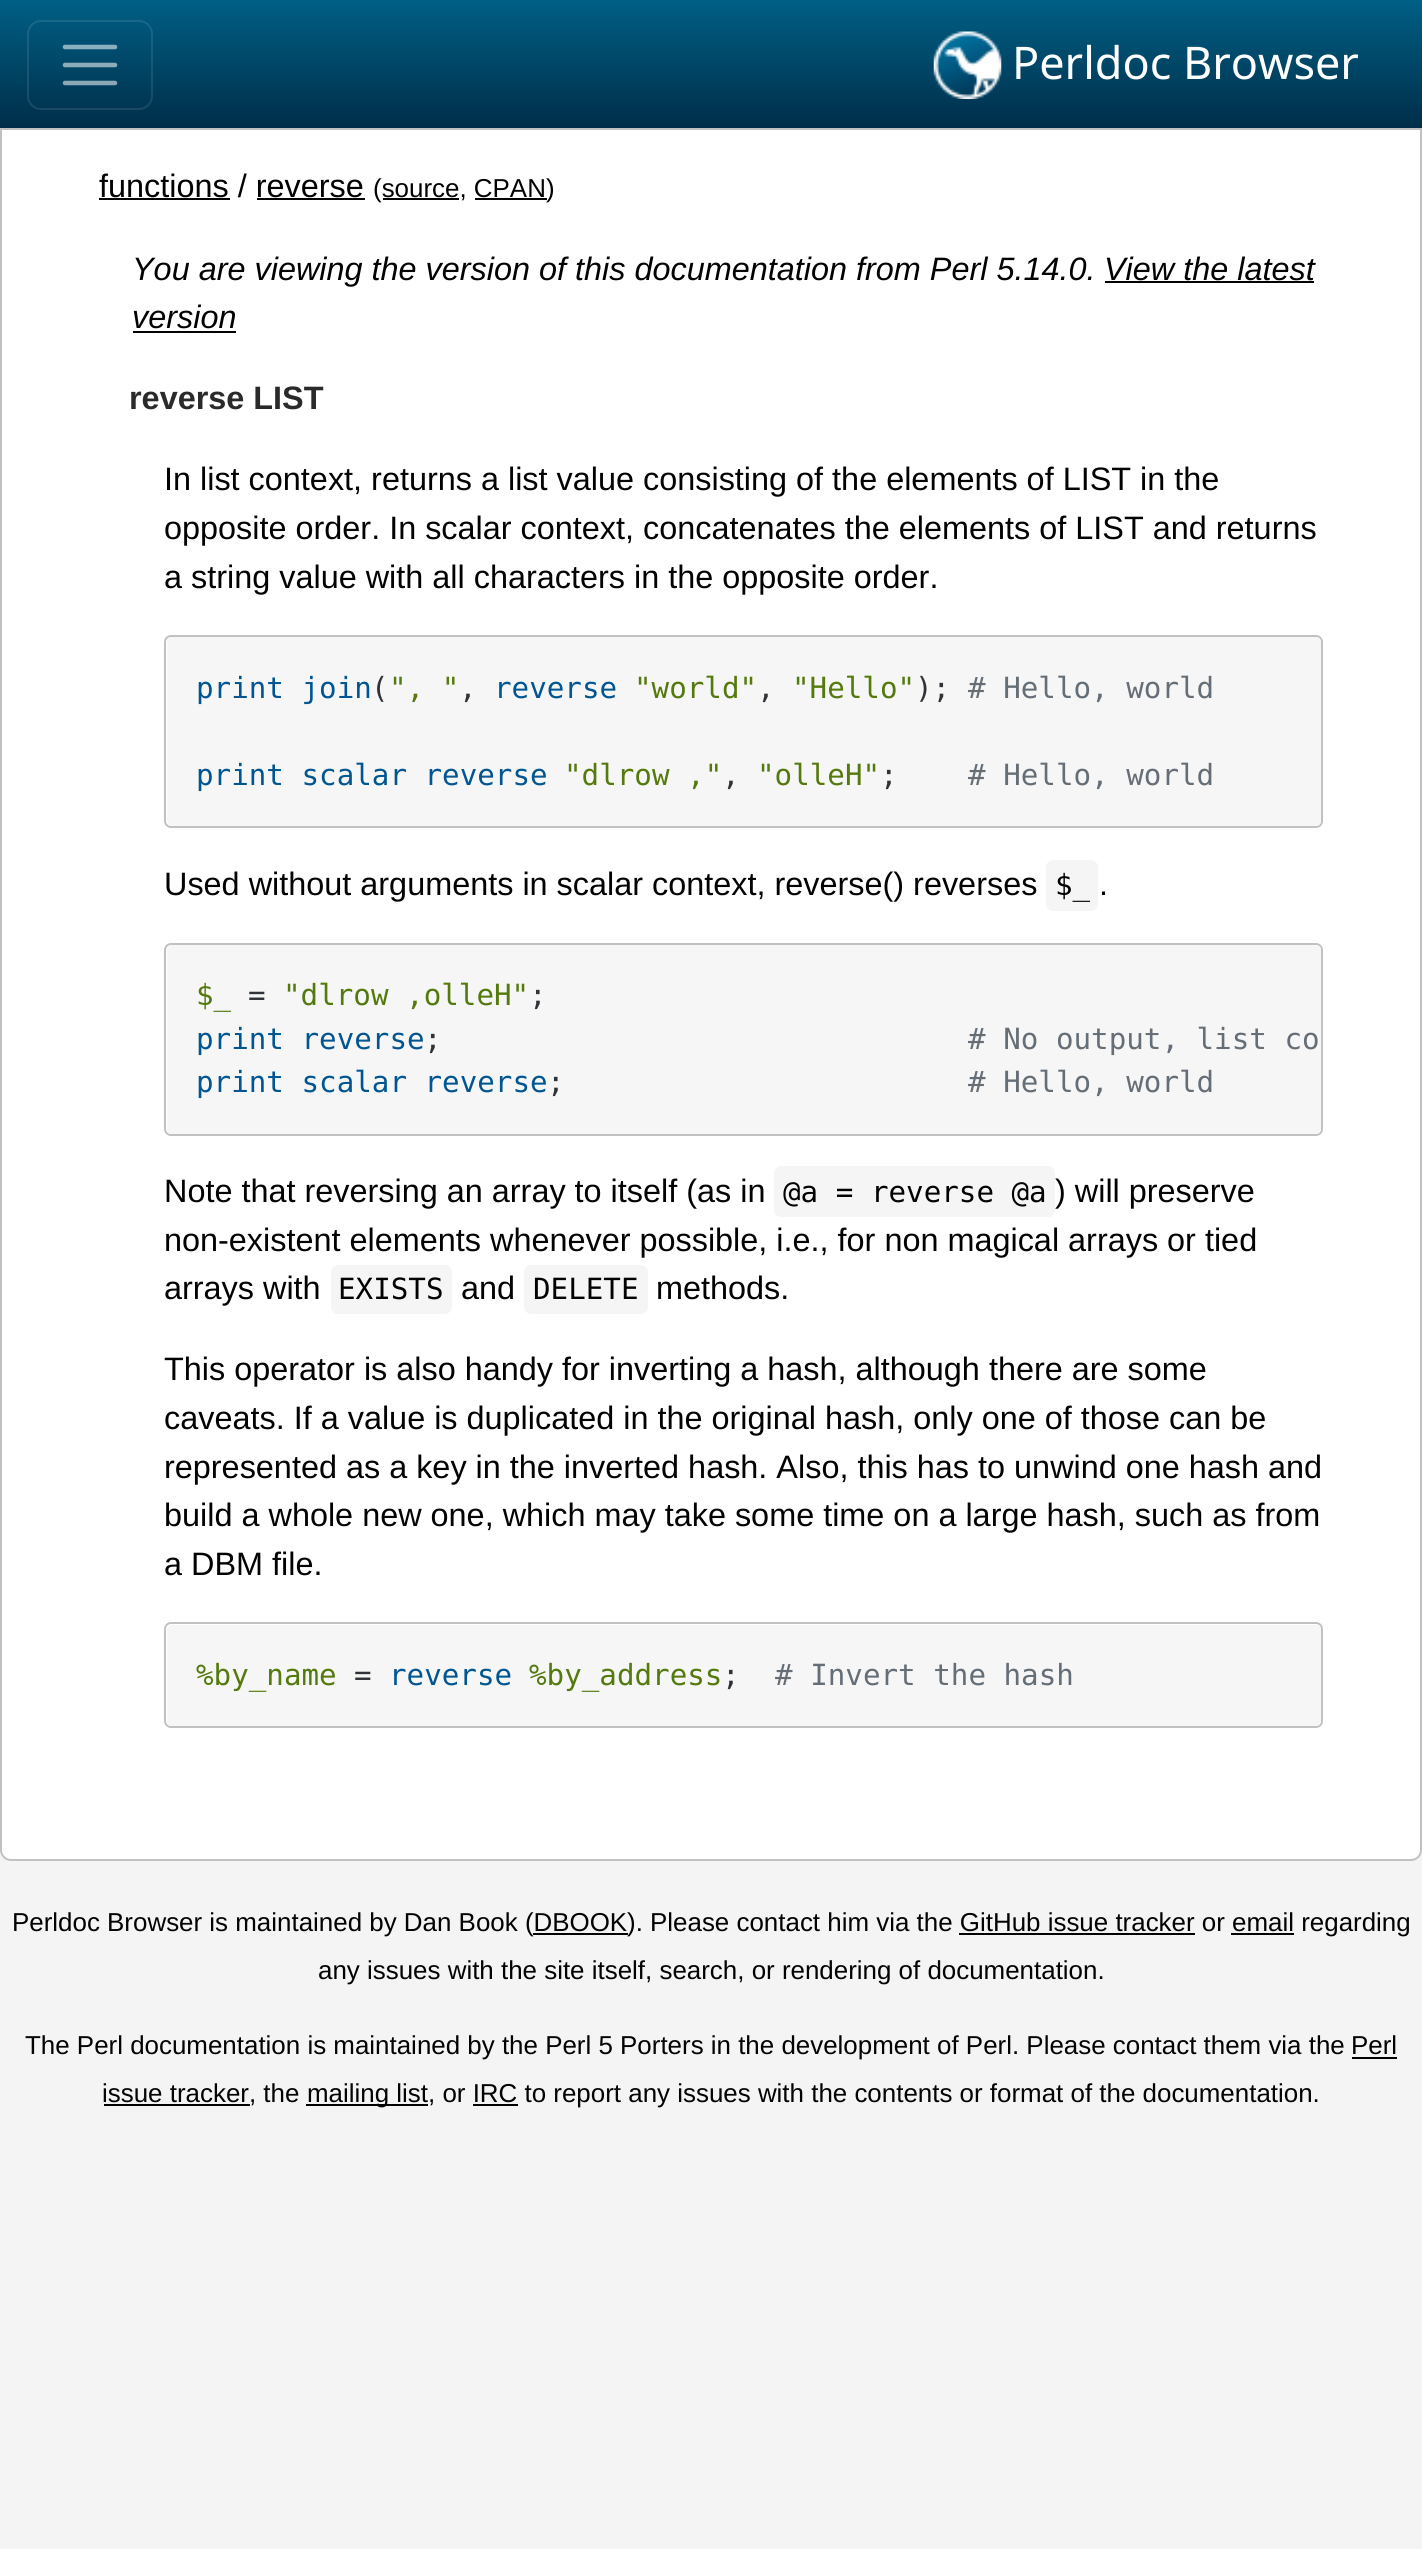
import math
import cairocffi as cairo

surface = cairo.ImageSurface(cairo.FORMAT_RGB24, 1422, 2549)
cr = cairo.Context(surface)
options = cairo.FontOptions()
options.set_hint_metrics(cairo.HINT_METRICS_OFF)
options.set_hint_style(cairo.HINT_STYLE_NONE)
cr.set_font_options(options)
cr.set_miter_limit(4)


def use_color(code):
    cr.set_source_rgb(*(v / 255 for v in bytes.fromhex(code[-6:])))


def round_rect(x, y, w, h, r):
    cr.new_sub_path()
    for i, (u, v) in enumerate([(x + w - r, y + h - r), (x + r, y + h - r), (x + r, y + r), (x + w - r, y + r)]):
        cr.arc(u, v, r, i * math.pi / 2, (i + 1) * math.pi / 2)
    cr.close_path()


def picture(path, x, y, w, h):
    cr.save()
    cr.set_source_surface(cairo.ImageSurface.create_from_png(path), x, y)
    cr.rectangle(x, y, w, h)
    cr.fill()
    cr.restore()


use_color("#f4f4f5")
cr.paint()
gradient = cairo.LinearGradient(711, 0, 711, 128)
gradient.add_color_stop_rgba(0, 0, 0.373, 0.522, 1)
gradient.add_color_stop_rgba(1, 0, 0.18, 0.286, 1)
cr.set_source(gradient)
cr.rectangle(0, 0, 1422, 128)
cr.fill()
round_rect(28, 21, 124, 88, 13)
cr.set_source_rgba(1, 1, 1, 0.1)
cr.stroke()
cr.new_path()
cr.move_to(65, 47)
cr.line_to(115, 47)
cr.move_to(65, 65)
cr.line_to(115, 65)
cr.move_to(65, 83)
cr.line_to(115, 83)
cr.set_source_rgba(1, 1, 1, 0.55)
cr.set_line_width(4.5)
cr.set_line_cap(cairo.LINE_CAP_ROUND)
cr.stroke()
picture("img1.png", 933, 31, 69, 68)
cr.select_font_face("Noto Sans")
cr.set_font_size(45)
use_color("#ffffff")
cr.move_to(1012, 79)
cr.show_text("Perldoc Browser")
cr.new_path()
cr.move_to(1, 129)
cr.line_to(1421, 129)
cr.line_to(1421, 1850)
cr.curve_to(1421, 1855.5, 1416.5, 1860, 1411, 1860)
cr.line_to(11, 1860)
cr.curve_to(5.5, 1860, 1, 1855.5, 1, 1850)
cr.close_path()
cr.fill_preserve()
use_color("#c1c1c1")
cr.set_line_width(2)
cr.set_line_cap(cairo.LINE_CAP_BUTT)
cr.stroke()
cr.select_font_face("Liberation Sans")
cr.set_font_size(32.4)
use_color("#020202")
cr.move_to(99, 197)
cr.show_text("functions / reverse")
cr.rectangle(99, 198, 131, 2)
cr.fill()
cr.set_font_size(25.92)
cr.move_to(373, 197)
cr.show_text("(source, CPAN")
cr.rectangle(383, 198, 76, 2)
cr.fill()
cr.rectangle(475, 198, 72, 2)
cr.fill()
cr.move_to(546, 197)
cr.show_text(")")
cr.rectangle(257, 198, 108, 2)
cr.fill()
cr.select_font_face("Liberation Sans", cairo.FONT_SLANT_ITALIC)
cr.set_font_size(32.4)
cr.move_to(132, 280)
cr.show_text("You are viewing the version of this documentation from Perl 5.14.0.")
cr.move_to(1104, 280)
cr.show_text("View the latest")
cr.rectangle(1105, 281, 209, 2)
cr.fill()
cr.move_to(132, 328)
cr.show_text("version")
cr.rectangle(133, 331, 103, 2)
cr.fill()
cr.select_font_face("Liberation Sans", cairo.FONT_SLANT_NORMAL, cairo.FONT_WEIGHT_BOLD)
use_color("#2a2a2a")
cr.move_to(129, 409)
cr.show_text("reverse LIST")
cr.select_font_face("Liberation Sans")
use_color("#020202")
cr.move_to(164, 490)
cr.show_text("In list context, returns a list value consisting of the elements of LIST in the")
cr.move_to(164, 539)
cr.show_text("opposite order. In scalar context, concatenates the elements of LIST and returns")
cr.move_to(164, 588)
cr.show_text("a string value with all characters in the opposite order.")
round_rect(165, 636, 1157, 191, 6)
use_color("#c1c1c1")
cr.stroke()
use_color("#f6f6f6")
round_rect(167, 637, 1154, 189, 5)
cr.fill()
cr.select_font_face("DejaVu Sans Mono")
cr.set_font_size(29.2)
use_color("#015692")
cr.move_to(196, 698)
cr.show_text("print join")
use_color("#2f3337")
cr.move_to(371, 698)
cr.show_text("(")
use_color("#54790d")
cr.move_to(389, 698)
cr.show_text("\", \"")
use_color("#2f3337")
cr.move_to(459, 698)
cr.show_text(",")
use_color("#015692")
cr.move_to(494, 698)
cr.show_text("reverse")
use_color("#54790d")
cr.move_to(634, 698)
cr.show_text("\"world\"")
use_color("#2f3337")
cr.move_to(757, 698)
cr.show_text(",")
use_color("#54790d")
cr.move_to(792, 698)
cr.show_text("\"Hello\"")
use_color("#2f3337")
cr.move_to(915, 698)
cr.show_text(");")
use_color("#656e77")
cr.move_to(968, 698)
cr.show_text("# Hello, world")
use_color("#015692")
cr.move_to(196, 785)
cr.show_text("print scalar reverse")
use_color("#54790d")
cr.move_to(564, 785)
cr.show_text("\"dlrow ,\"")
use_color("#2f3337")
cr.move_to(722, 785)
cr.show_text(",")
use_color("#54790d")
cr.move_to(757, 785)
cr.show_text("\"olleH\"")
use_color("#2f3337")
cr.move_to(880, 785)
cr.show_text(";")
use_color("#656e77")
cr.move_to(968, 785)
cr.show_text("# Hello, world")
cr.select_font_face("Liberation Sans")
cr.set_font_size(32.4)
use_color("#020202")
cr.move_to(164, 895)
cr.show_text("Used without arguments in scalar context, reverse() reverses")
use_color("#f5f5f5")
round_rect(1046, 860, 52, 51, 7)
cr.fill()
cr.select_font_face("DejaVu Sans Mono")
cr.set_font_size(29.2)
use_color("#020202")
cr.move_to(1055, 895)
cr.show_text("$_")
cr.select_font_face("Liberation Sans")
cr.set_font_size(32.4)
cr.move_to(1099, 895)
cr.show_text(".")
round_rect(165, 944, 1157, 191, 6)
use_color("#c1c1c1")
cr.stroke()
use_color("#f6f6f6")
round_rect(167, 945, 1154, 189, 5)
cr.fill()
cr.select_font_face("DejaVu Sans Mono")
cr.set_font_size(29.2)
use_color("#54790d")
cr.move_to(196, 1005)
cr.show_text("$_")
use_color("#2f3337")
cr.move_to(248, 1005)
cr.show_text("=")
use_color("#54790d")
cr.move_to(283, 1005)
cr.show_text("\"dlrow ,olleH\"")
use_color("#2f3337")
cr.move_to(529, 1005)
cr.show_text(";")
use_color("#015692")
cr.move_to(196, 1049)
cr.show_text("print reverse")
use_color("#2f3337")
cr.move_to(424, 1049)
cr.show_text(";")
use_color("#656e77")
cr.move_to(968, 1049)
cr.show_text("# No output, list co")
use_color("#015692")
cr.move_to(196, 1092)
cr.show_text("print scalar reverse")
use_color("#2f3337")
cr.move_to(547, 1092)
cr.show_text(";")
use_color("#656e77")
cr.move_to(968, 1092)
cr.show_text("# Hello, world")
cr.select_font_face("Liberation Sans")
cr.set_font_size(32.4)
use_color("#020202")
cr.move_to(164, 1202)
cr.show_text("Note that reversing an array to itself (as in")
use_color("#f5f5f5")
round_rect(774, 1166, 281, 51, 7)
cr.fill()
cr.select_font_face("DejaVu Sans Mono")
cr.set_font_size(29.2)
use_color("#020202")
cr.move_to(783, 1202)
cr.show_text("@a = reverse @a")
cr.select_font_face("Liberation Sans")
cr.set_font_size(32.4)
cr.move_to(1055, 1202)
cr.show_text(") will preserve")
cr.move_to(164, 1251)
cr.show_text("non-existent elements whenever possible, i.e., for non magical arrays or tied")
cr.move_to(164, 1299)
cr.show_text("arrays with")
use_color("#f5f5f5")
round_rect(331, 1265, 121, 49, 7)
cr.fill()
cr.select_font_face("DejaVu Sans Mono")
cr.set_font_size(29.2)
use_color("#020202")
cr.move_to(338, 1299)
cr.show_text("EXISTS")
cr.select_font_face("Liberation Sans")
cr.set_font_size(32.4)
cr.move_to(461, 1299)
cr.show_text("and")
use_color("#f5f5f5")
round_rect(524, 1265, 124, 49, 7)
cr.fill()
cr.select_font_face("DejaVu Sans Mono")
cr.set_font_size(29.2)
use_color("#020202")
cr.move_to(533, 1299)
cr.show_text("DELETE")
cr.select_font_face("Liberation Sans")
cr.set_font_size(32.4)
cr.move_to(656, 1299)
cr.show_text("methods.")
cr.move_to(164, 1380)
cr.show_text("This operator is also handy for inverting a hash, although there are some")
cr.move_to(164, 1429)
cr.show_text("caveats. If a value is duplicated in the original hash, only one of those can be")
cr.move_to(164, 1478)
cr.show_text("represented as a key in the inverted hash. Also, this has to unwind one hash and")
cr.move_to(164, 1526)
cr.show_text("build a whole new one, which may take some time on a large hash, such as from")
cr.move_to(164, 1575)
cr.show_text("a DBM file.")
round_rect(165, 1623, 1157, 104, 6)
use_color("#c1c1c1")
cr.stroke()
use_color("#f6f6f6")
round_rect(167, 1625, 1154, 101, 5)
cr.fill()
cr.select_font_face("DejaVu Sans Mono")
cr.set_font_size(29.2)
use_color("#54790d")
cr.move_to(196, 1685)
cr.show_text("%by_name")
use_color("#2f3337")
cr.move_to(354, 1685)
cr.show_text("=")
use_color("#015692")
cr.move_to(389, 1685)
cr.show_text("reverse")
use_color("#54790d")
cr.move_to(529, 1685)
cr.show_text("%by_address")
use_color("#2f3337")
cr.move_to(722, 1685)
cr.show_text(";")
use_color("#656e77")
cr.move_to(775, 1685)
cr.show_text("# Invert the hash")
cr.select_font_face("Liberation Sans")
cr.set_font_size(25.92)
use_color("#020202")
cr.move_to(12, 1931)
cr.show_text("Perldoc Browser is maintained by Dan Book (DBOOK")
cr.rectangle(533, 1933, 95, 2)
cr.fill()
cr.move_to(627, 1931)
cr.show_text("). Please contact him via the GitHub issue tracker or email regarding")
cr.rectangle(959, 1933, 236, 2)
cr.fill()
cr.rectangle(1231, 1933, 63, 2)
cr.fill()
cr.move_to(318, 1979)
cr.show_text("any issues with the site itself, search, or rendering of documentation.")
cr.move_to(25, 2054)
cr.show_text("The Perl documentation is maintained by the Perl 5 Porters in the development of Perl. Please contact them via the")
cr.move_to(1351, 2054)
cr.show_text("Perl")
cr.rectangle(1352, 2057, 45, 2)
cr.fill()
cr.rectangle(104, 2104, 146, 2)
cr.fill()
cr.move_to(102, 2102)
cr.show_text("issue tracker, the")
cr.rectangle(306, 2104, 122, 2)
cr.fill()
cr.move_to(307, 2102)
cr.show_text("mailing list, or IRC to report any issues with the contents or format of the documentation.")
cr.rectangle(473, 2104, 45, 2)
cr.fill()
surface.write_to_png("result.png")
